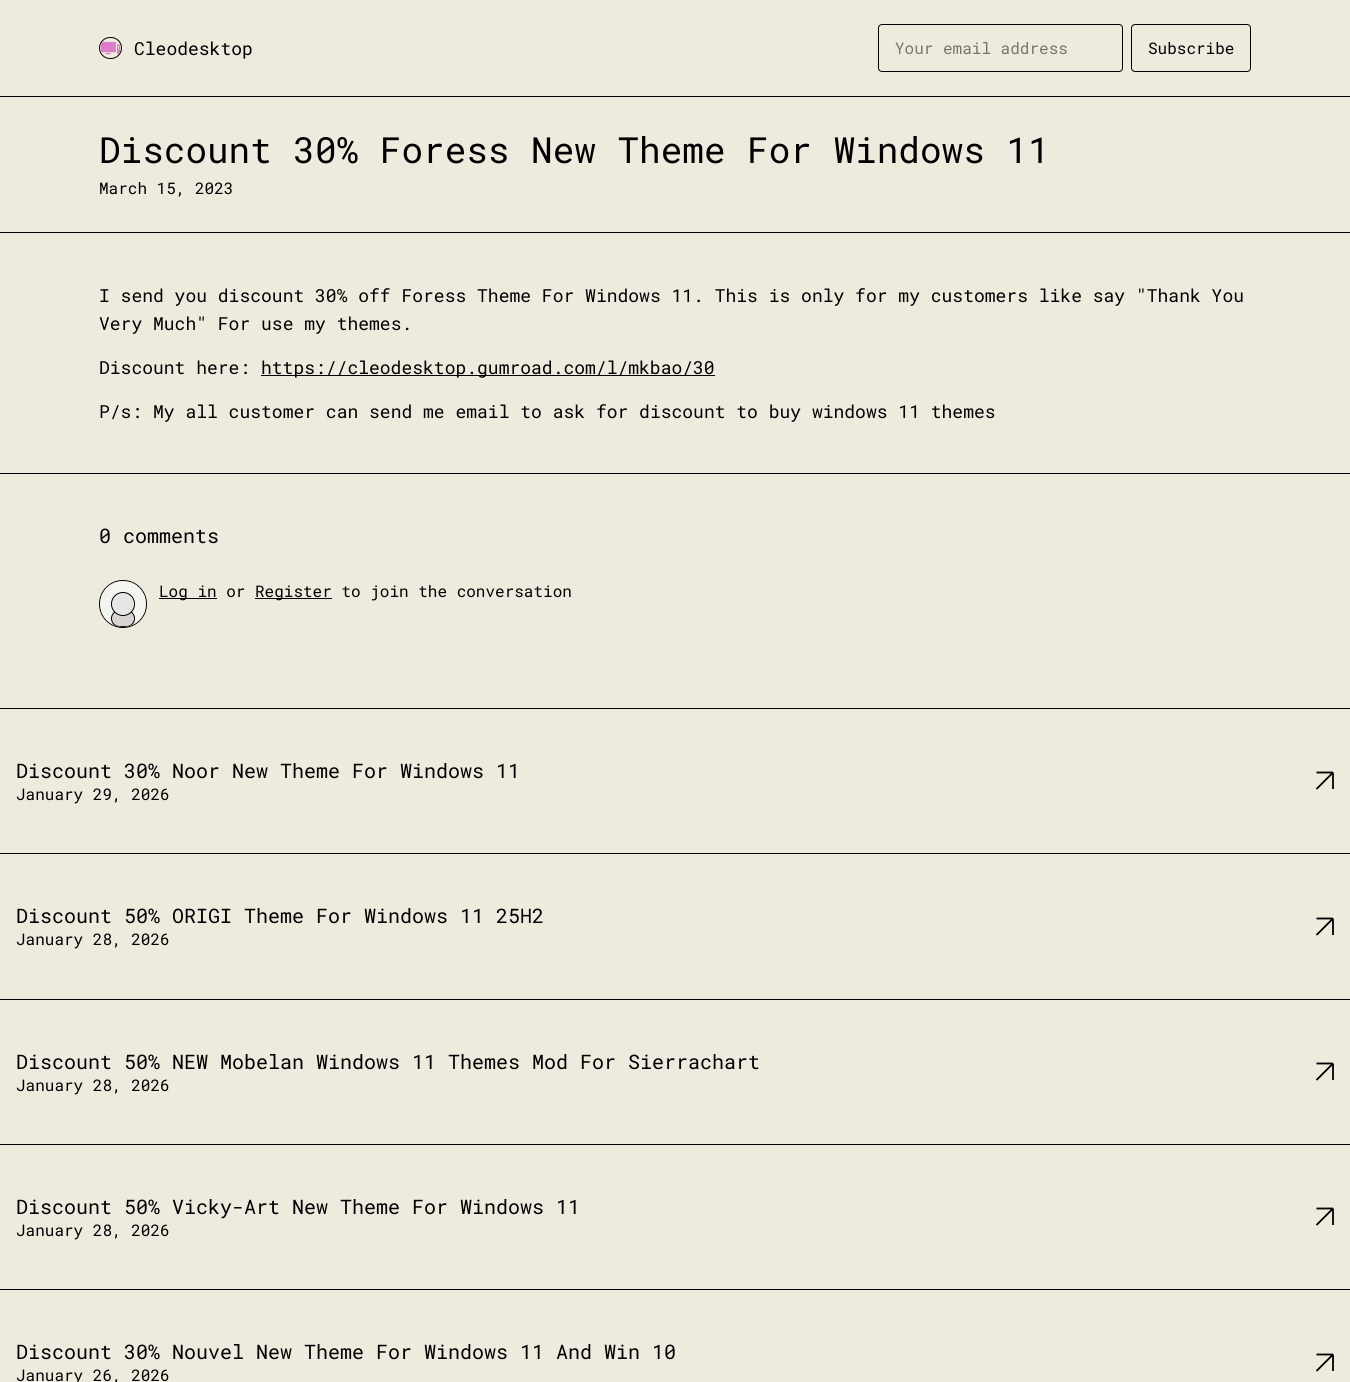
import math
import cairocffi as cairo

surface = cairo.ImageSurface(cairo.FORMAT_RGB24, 1350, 1382)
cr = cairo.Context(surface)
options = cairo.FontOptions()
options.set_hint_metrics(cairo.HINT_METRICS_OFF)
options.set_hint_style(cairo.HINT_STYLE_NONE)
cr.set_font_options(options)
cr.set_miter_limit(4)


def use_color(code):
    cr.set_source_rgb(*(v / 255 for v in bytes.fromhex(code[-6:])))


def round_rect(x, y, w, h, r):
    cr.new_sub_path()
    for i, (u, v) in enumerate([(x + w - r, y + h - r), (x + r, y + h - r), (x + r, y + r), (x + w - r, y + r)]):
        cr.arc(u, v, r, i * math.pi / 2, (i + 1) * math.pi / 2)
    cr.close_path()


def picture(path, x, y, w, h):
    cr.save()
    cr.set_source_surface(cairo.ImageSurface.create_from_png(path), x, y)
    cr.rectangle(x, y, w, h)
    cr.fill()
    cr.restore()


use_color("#efeade")
cr.paint()
use_color("#000000")
cr.rectangle(0, 96, 1350, 1)
cr.fill()
round_rect(99.5, 37.5, 22, 21, 10.5)
cr.set_line_width(1)
cr.stroke()
picture("img1.png", 100, 41, 21, 14)
cr.select_font_face("Roboto Mono")
cr.set_font_size(18)
cr.move_to(134, 55)
cr.show_text("Cleodesktop")
round_rect(878.5, 24.5, 244, 47, 3.5)
cr.stroke()
cr.set_font_size(16)
use_color("#78756f")
cr.move_to(895, 54)
cr.show_text("Your email address")
round_rect(1131.5, 24.5, 119, 47, 3.5)
use_color("#000000")
cr.stroke()
cr.move_to(1148, 54)
cr.show_text("Subscribe")
cr.rectangle(0, 232, 1350, 1)
cr.fill()
cr.set_font_size(36)
cr.move_to(99, 163)
cr.show_text("Discount 30% Foress New Theme For Windows 11")
cr.set_font_size(16)
cr.move_to(99, 194)
cr.show_text("March 15, 2023")
cr.rectangle(0, 473, 1350, 1)
cr.fill()
cr.set_font_size(18)
cr.move_to(99, 302)
cr.show_text("I send you discount 30% off Foress Theme For Windows 11. This is only for my customers like say \"Thank You")
cr.move_to(99, 330)
cr.show_text("Very Much\" For use my themes.")
cr.move_to(99, 374)
cr.show_text("Discount here:")
cr.rectangle(261, 375, 454, 1)
cr.fill()
cr.move_to(261, 374)
cr.show_text("https://cleodesktop.gumroad.com/l/mkbao/30")
cr.move_to(99, 418)
cr.show_text("P/s: My all customer can send me email to ask for discount to buy windows 11 themes")
cr.rectangle(0, 708, 1350, 1)
cr.fill()
cr.set_font_size(20)
cr.move_to(99, 543)
cr.show_text("0 comments")
cr.new_path()
cr.arc(123, 604, 23.5, 0, 2 * math.pi)
cr.stroke()
picture("img2.png", 100, 581, 46, 46)
cr.rectangle(159, 598, 58, 1)
cr.fill()
cr.set_font_size(16)
cr.move_to(159, 597)
cr.show_text("Log in or")
cr.rectangle(255, 598, 77, 1)
cr.fill()
cr.move_to(255, 597)
cr.show_text("Register to join the conversation")
cr.rectangle(0, 853, 1350, 1)
cr.fill()
cr.set_font_size(20)
cr.move_to(16, 778)
cr.show_text("Discount 30% Noor New Theme For Windows 11")
cr.set_font_size(16)
cr.move_to(16, 800)
cr.show_text("January 29, 2026")
cr.new_path()
cr.move_to(1316.5, 789)
cr.line_to(1333, 772.5)
cr.move_to(1333, 772.5)
cr.line_to(1316.5, 772.5)
cr.move_to(1333, 772.5)
cr.line_to(1333, 789)
cr.set_line_width(1.8)
cr.stroke()
cr.rectangle(0, 999, 1350, 1)
cr.fill()
cr.set_font_size(20)
cr.move_to(16, 923)
cr.show_text("Discount 50% ORIGI Theme For Windows 11 25H2")
cr.set_font_size(16)
cr.move_to(16, 945)
cr.show_text("January 28, 2026")
cr.new_path()
cr.move_to(1316.5, 935)
cr.line_to(1333, 918.5)
cr.move_to(1333, 918.5)
cr.line_to(1316.5, 918.5)
cr.move_to(1333, 918.5)
cr.line_to(1333, 935)
cr.stroke()
cr.rectangle(0, 1144, 1350, 1)
cr.fill()
cr.set_font_size(20)
cr.move_to(16, 1069)
cr.show_text("Discount 50% NEW Mobelan Windows 11 Themes Mod For Sierrachart")
cr.set_font_size(16)
cr.move_to(16, 1091)
cr.show_text("January 28, 2026")
cr.new_path()
cr.move_to(1316.5, 1080)
cr.line_to(1333, 1063.5)
cr.move_to(1333, 1063.5)
cr.line_to(1316.5, 1063.5)
cr.move_to(1333, 1063.5)
cr.line_to(1333, 1080)
cr.stroke()
cr.rectangle(0, 1289, 1350, 1)
cr.fill()
cr.set_font_size(20)
cr.move_to(16, 1214)
cr.show_text("Discount 50% Vicky-Art New Theme For Windows 11")
cr.set_font_size(16)
cr.move_to(16, 1236)
cr.show_text("January 28, 2026")
cr.new_path()
cr.move_to(1316.5, 1225)
cr.line_to(1333, 1208.5)
cr.move_to(1333, 1208.5)
cr.line_to(1316.5, 1208.5)
cr.move_to(1333, 1208.5)
cr.line_to(1333, 1225)
cr.stroke()
cr.set_font_size(20)
cr.move_to(16, 1359)
cr.show_text("Discount 30% Nouvel New Theme For Windows 11 And Win 10")
cr.set_font_size(16)
cr.move_to(16, 1381)
cr.show_text("January 26, 2026")
cr.new_path()
cr.move_to(1316.5, 1371)
cr.line_to(1333, 1354.5)
cr.move_to(1333, 1354.5)
cr.line_to(1316.5, 1354.5)
cr.move_to(1333, 1354.5)
cr.line_to(1333, 1371)
cr.stroke()
surface.write_to_png("result.png")
